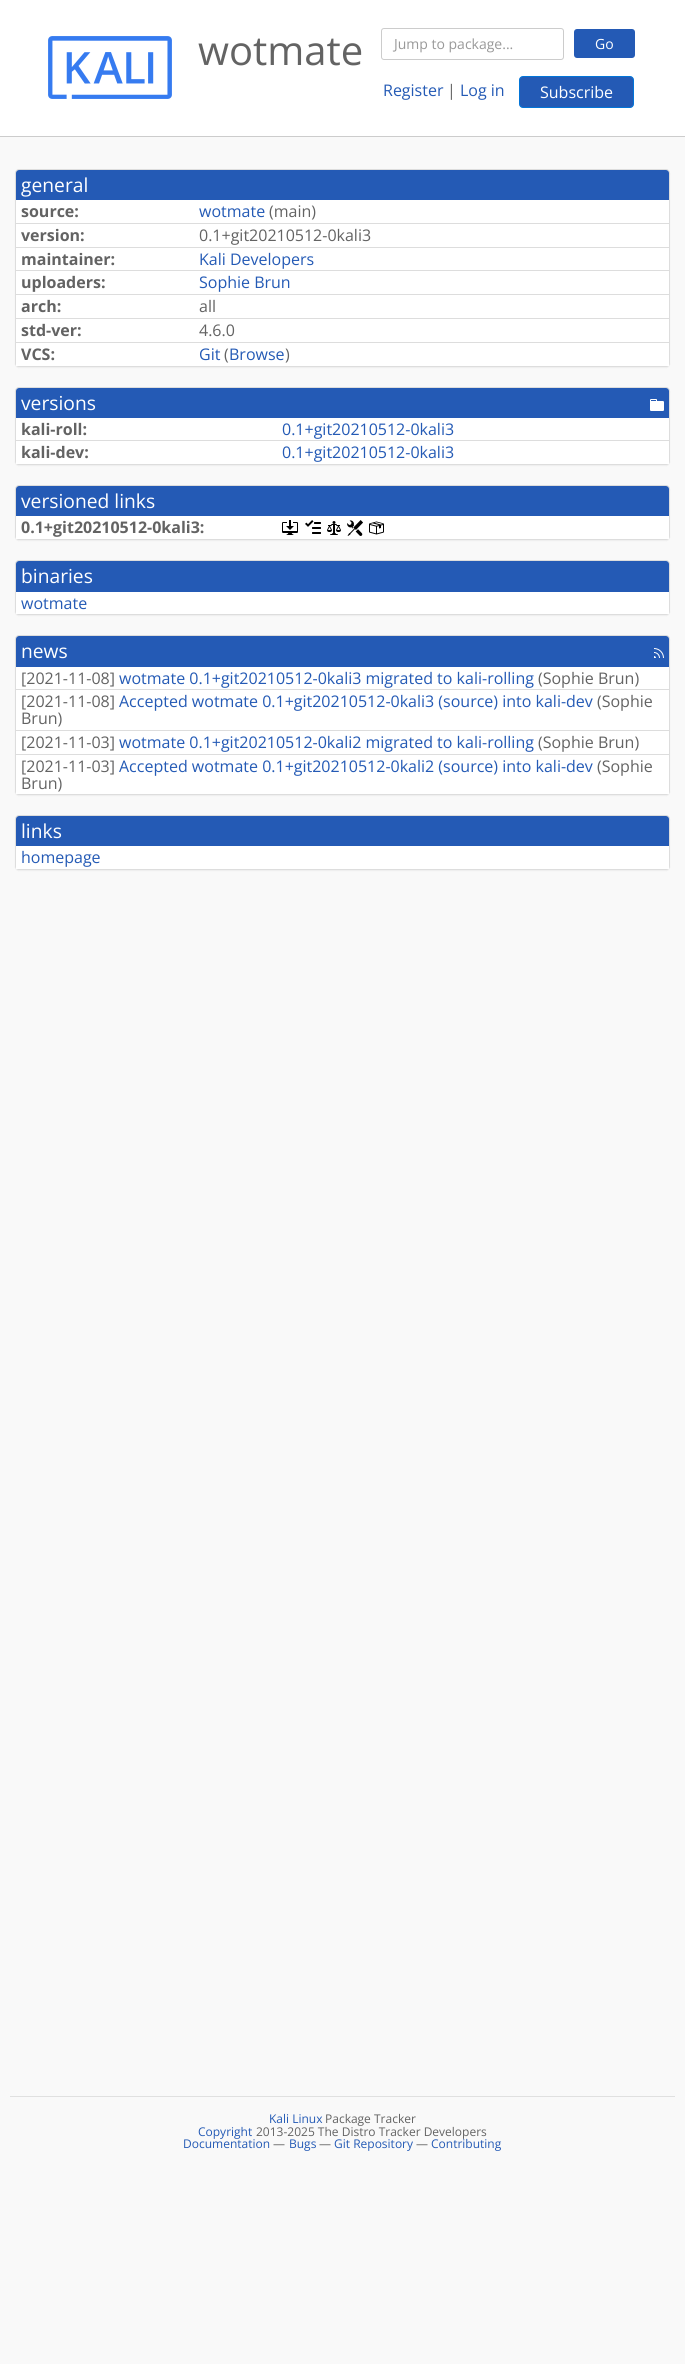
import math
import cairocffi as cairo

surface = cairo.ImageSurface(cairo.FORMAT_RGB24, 685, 2364)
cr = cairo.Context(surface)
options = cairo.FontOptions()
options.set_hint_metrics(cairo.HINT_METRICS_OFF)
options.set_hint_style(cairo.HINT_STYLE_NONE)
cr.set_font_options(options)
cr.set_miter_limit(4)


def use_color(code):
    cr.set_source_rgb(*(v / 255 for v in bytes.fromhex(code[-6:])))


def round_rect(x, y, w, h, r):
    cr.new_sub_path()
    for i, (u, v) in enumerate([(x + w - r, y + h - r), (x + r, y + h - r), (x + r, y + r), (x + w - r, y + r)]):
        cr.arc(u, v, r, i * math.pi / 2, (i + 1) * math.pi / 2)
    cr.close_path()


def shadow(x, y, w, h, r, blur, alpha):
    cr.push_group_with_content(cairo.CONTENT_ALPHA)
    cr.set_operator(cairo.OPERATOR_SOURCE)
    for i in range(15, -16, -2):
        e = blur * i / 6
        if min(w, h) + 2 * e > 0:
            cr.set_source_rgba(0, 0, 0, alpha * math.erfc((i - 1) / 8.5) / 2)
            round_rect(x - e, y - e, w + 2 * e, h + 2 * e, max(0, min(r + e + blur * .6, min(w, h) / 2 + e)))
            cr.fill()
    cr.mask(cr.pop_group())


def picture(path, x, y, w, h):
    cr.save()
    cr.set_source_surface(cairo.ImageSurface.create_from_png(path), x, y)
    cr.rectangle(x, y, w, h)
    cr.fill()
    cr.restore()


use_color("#f9f9f9")
cr.paint()
use_color("#ffffff")
cr.rectangle(0, 0, 685, 136)
cr.fill()
use_color("#cccccc")
cr.rectangle(0, 136, 685, 1)
cr.fill()
picture("img1.png", 48, 36, 124, 63)
cr.select_font_face("Open Sans")
cr.set_font_size(40)
use_color("#636363")
cr.move_to(198, 65)
cr.show_text("wotmate")
round_rect(381.5, 28.5, 182, 31, 2.5)
use_color("#cccccc")
cr.set_line_width(1)
cr.stroke()
cr.set_font_size(14)
use_color("#999999")
cr.move_to(394, 49)
cr.show_text("Jump to package...")
use_color("#245ab5")
round_rect(574, 29, 61, 29, 3)
cr.fill()
use_color("#ffffff")
cr.move_to(595, 49)
cr.show_text("Go")
cr.set_font_size(16)
use_color("#245ab5")
cr.move_to(383, 96)
cr.show_text("Register")
use_color("#636363")
cr.move_to(447, 96)
cr.show_text("|")
use_color("#245ab5")
cr.move_to(460, 96)
cr.show_text("Log in")
round_rect(519.5, 76.5, 114, 31, 3.5)
cr.fill_preserve()
use_color("#0275d8")
cr.stroke()
use_color("#ffffff")
cr.move_to(540, 98)
cr.show_text("Subscribe")
use_color("#000000")
shadow(15, 170, 655, 198, 4, 0.5, 0.05)
round_rect(15.5, 169.5, 654, 197, 3.5)
use_color("#dddddd")
cr.stroke()
use_color("#245ab5")
cr.new_path()
cr.move_to(19, 170)
cr.line_to(666, 170)
cr.curve_to(667.5, 170, 669, 171.5, 669, 173)
cr.line_to(669, 201)
cr.line_to(16, 201)
cr.line_to(16, 173)
cr.curve_to(16, 171.5, 17.5, 170, 19, 170)
cr.close_path()
cr.fill()
cr.set_font_size(19.25)
use_color("#ffffff")
cr.move_to(21, 192)
cr.show_text("general")
cr.rectangle(16, 200, 653, 166)
cr.fill()
use_color("#dddddd")
cr.rectangle(16, 223, 653, 1)
cr.fill()
cr.select_font_face("Open Sans", cairo.FONT_SLANT_NORMAL, cairo.FONT_WEIGHT_BOLD)
cr.set_font_size(16)
use_color("#636363")
cr.move_to(21, 217)
cr.show_text("source:")
cr.select_font_face("Open Sans")
use_color("#245ab5")
cr.move_to(199, 217)
cr.show_text("wotmate")
use_color("#636363")
cr.move_to(269, 217)
cr.show_text("(main)")
use_color("#dddddd")
cr.rectangle(16, 247, 653, 1)
cr.fill()
cr.select_font_face("Open Sans", cairo.FONT_SLANT_NORMAL, cairo.FONT_WEIGHT_BOLD)
use_color("#636363")
cr.move_to(21, 241)
cr.show_text("version:")
cr.select_font_face("Open Sans")
cr.move_to(199, 241)
cr.show_text("0.1+git20210512-0kali3")
use_color("#dddddd")
cr.rectangle(16, 270, 653, 1)
cr.fill()
cr.select_font_face("Open Sans", cairo.FONT_SLANT_NORMAL, cairo.FONT_WEIGHT_BOLD)
use_color("#636363")
cr.move_to(21, 265)
cr.show_text("maintainer:")
cr.select_font_face("Open Sans")
use_color("#245ab5")
cr.move_to(199, 265)
cr.show_text("Kali Developers")
use_color("#dddddd")
cr.rectangle(16, 294, 653, 1)
cr.fill()
cr.select_font_face("Open Sans", cairo.FONT_SLANT_NORMAL, cairo.FONT_WEIGHT_BOLD)
use_color("#636363")
cr.move_to(21, 288)
cr.show_text("uploaders:")
cr.select_font_face("Open Sans")
use_color("#245ab5")
cr.move_to(199, 288)
cr.show_text("Sophie Brun")
use_color("#dddddd")
cr.rectangle(16, 318, 653, 1)
cr.fill()
cr.select_font_face("Open Sans", cairo.FONT_SLANT_NORMAL, cairo.FONT_WEIGHT_BOLD)
use_color("#636363")
cr.move_to(21, 312)
cr.show_text("arch:")
cr.select_font_face("Open Sans")
cr.move_to(199, 312)
cr.show_text("all")
cr.select_font_face("Open Sans", cairo.FONT_SLANT_NORMAL, cairo.FONT_WEIGHT_BOLD)
cr.move_to(21, 336)
cr.show_text("std-ver:")
cr.select_font_face("Open Sans")
cr.move_to(199, 336)
cr.show_text("4.6.0")
use_color("#dddddd")
cr.rectangle(16, 342, 653, 1)
cr.fill()
cr.select_font_face("Open Sans", cairo.FONT_SLANT_NORMAL, cairo.FONT_WEIGHT_BOLD)
use_color("#636363")
cr.move_to(21, 360)
cr.show_text("VCS:")
cr.select_font_face("Open Sans")
use_color("#245ab5")
cr.move_to(199, 360)
cr.show_text("Git")
use_color("#636363")
cr.move_to(224, 360)
cr.show_text("(")
use_color("#245ab5")
cr.move_to(229, 360)
cr.show_text("Browse")
use_color("#636363")
cr.move_to(285, 360)
cr.show_text(")")
use_color("#000000")
shadow(15, 388, 655, 78, 4, 0.5, 0.05)
round_rect(15.5, 387.5, 654, 77, 3.5)
use_color("#dddddd")
cr.stroke()
use_color("#245ab5")
cr.new_path()
cr.move_to(19, 388)
cr.line_to(666, 388)
cr.curve_to(667.5, 388, 669, 389.5, 669, 391)
cr.line_to(669, 419)
cr.line_to(16, 419)
cr.line_to(16, 391)
cr.curve_to(16, 389.5, 17.5, 388, 19, 388)
cr.close_path()
cr.fill()
cr.set_font_size(19.25)
use_color("#ffffff")
cr.move_to(21, 410)
cr.show_text("versions")
picture("img2.png", 650, 399, 14, 12)
cr.rectangle(16, 418, 653, 46)
cr.fill()
cr.select_font_face("Open Sans", cairo.FONT_SLANT_NORMAL, cairo.FONT_WEIGHT_BOLD)
cr.set_font_size(16)
use_color("#636363")
cr.move_to(21, 435)
cr.show_text("kali-roll:")
cr.select_font_face("Open Sans")
use_color("#245ab5")
cr.move_to(282, 435)
cr.show_text("0.1+git20210512-0kali3")
use_color("#dddddd")
cr.rectangle(16, 440, 653, 1)
cr.fill()
cr.select_font_face("Open Sans", cairo.FONT_SLANT_NORMAL, cairo.FONT_WEIGHT_BOLD)
use_color("#636363")
cr.move_to(21, 458)
cr.show_text("kali-dev:")
cr.select_font_face("Open Sans")
use_color("#245ab5")
cr.move_to(282, 458)
cr.show_text("0.1+git20210512-0kali3")
use_color("#000000")
shadow(15, 486, 655, 55, 4, 0.5, 0.05)
round_rect(15.5, 485.5, 654, 54, 3.5)
use_color("#dddddd")
cr.stroke()
use_color("#245ab5")
cr.new_path()
cr.move_to(19, 486)
cr.line_to(666, 486)
cr.curve_to(667.5, 486, 669, 487.5, 669, 489)
cr.line_to(669, 517)
cr.line_to(16, 517)
cr.line_to(16, 489)
cr.curve_to(16, 487.5, 17.5, 486, 19, 486)
cr.close_path()
cr.fill()
cr.set_font_size(19.25)
use_color("#ffffff")
cr.move_to(21, 508)
cr.show_text("versioned links")
cr.rectangle(16, 516, 653, 23)
cr.fill()
cr.select_font_face("Open Sans", cairo.FONT_SLANT_NORMAL, cairo.FONT_WEIGHT_BOLD)
cr.set_font_size(16)
use_color("#636363")
cr.move_to(21, 533)
cr.show_text("0.1+git20210512-0kali3:")
picture("img3.png", 282, 520, 16, 15)
picture("img4.png", 305, 520, 16, 14)
picture("img5.png", 327, 521, 14, 14)
picture("img6.png", 347, 520, 16, 16)
picture("img7.png", 369, 521, 15, 14)
use_color("#000000")
shadow(15, 561, 655, 55, 4, 0.5, 0.05)
round_rect(15.5, 560.5, 654, 54, 3.5)
use_color("#dddddd")
cr.stroke()
use_color("#245ab5")
cr.new_path()
cr.move_to(19, 561)
cr.line_to(666, 561)
cr.curve_to(667.5, 561, 669, 562.5, 669, 564)
cr.line_to(669, 593)
cr.line_to(16, 593)
cr.line_to(16, 564)
cr.curve_to(16, 562.5, 17.5, 561, 19, 561)
cr.close_path()
cr.fill()
cr.select_font_face("Open Sans")
cr.set_font_size(19.25)
use_color("#ffffff")
cr.move_to(21, 583)
cr.show_text("binaries")
cr.rectangle(16, 592, 653, 22)
cr.fill()
cr.set_font_size(16)
use_color("#245ab5")
cr.move_to(21, 609)
cr.show_text("wotmate")
use_color("#000000")
shadow(15, 636, 655, 160, 4, 0.5, 0.05)
round_rect(15.5, 635.5, 654, 159, 3.5)
use_color("#dddddd")
cr.stroke()
use_color("#245ab5")
cr.new_path()
cr.move_to(19, 636)
cr.line_to(666, 636)
cr.curve_to(667.5, 636, 669, 637.5, 669, 639)
cr.line_to(669, 668)
cr.line_to(16, 668)
cr.line_to(16, 639)
cr.curve_to(16, 637.5, 17.5, 636, 19, 636)
cr.close_path()
cr.fill()
cr.set_font_size(19.25)
use_color("#ffffff")
cr.move_to(21, 658)
cr.show_text("news")
picture("img8.png", 654, 648, 10, 10)
cr.rectangle(16, 667, 653, 127)
cr.fill()
use_color("#dddddd")
cr.rectangle(16, 689, 653, 1)
cr.fill()
cr.set_font_size(16)
use_color("#636363")
cr.move_to(21, 684)
cr.show_text("[2021-11-08]")
use_color("#245ab5")
cr.move_to(119, 684)
cr.show_text("wotmate 0.1+git20210512-0kali3 migrated to kali-rolling")
use_color("#636363")
cr.move_to(538, 684)
cr.show_text("(Sophie Brun)")
use_color("#dddddd")
cr.rectangle(16, 730, 653, 1)
cr.fill()
use_color("#636363")
cr.move_to(21, 707)
cr.show_text("[2021-11-08]")
use_color("#245ab5")
cr.move_to(119, 707)
cr.show_text("Accepted wotmate 0.1+git20210512-0kali3 (source) into kali-dev")
use_color("#636363")
cr.move_to(597, 707)
cr.show_text("(Sophie")
cr.move_to(21, 724)
cr.show_text("Brun)")
cr.move_to(21, 748)
cr.show_text("[2021-11-03]")
use_color("#245ab5")
cr.move_to(119, 748)
cr.show_text("wotmate 0.1+git20210512-0kali2 migrated to kali-rolling")
use_color("#636363")
cr.move_to(538, 748)
cr.show_text("(Sophie Brun)")
use_color("#dddddd")
cr.rectangle(16, 754, 653, 1)
cr.fill()
use_color("#636363")
cr.move_to(21, 772)
cr.show_text("[2021-11-03]")
use_color("#245ab5")
cr.move_to(119, 772)
cr.show_text("Accepted wotmate 0.1+git20210512-0kali2 (source) into kali-dev")
use_color("#636363")
cr.move_to(597, 772)
cr.show_text("(Sophie")
cr.move_to(21, 789)
cr.show_text("Brun)")
use_color("#000000")
shadow(15, 816, 655, 55, 4, 0.5, 0.05)
round_rect(15.5, 815.5, 654, 54, 3.5)
use_color("#dddddd")
cr.stroke()
use_color("#245ab5")
cr.new_path()
cr.move_to(19, 816)
cr.line_to(666, 816)
cr.curve_to(667.5, 816, 669, 817.5, 669, 819)
cr.line_to(669, 847)
cr.line_to(16, 847)
cr.line_to(16, 819)
cr.curve_to(16, 817.5, 17.5, 816, 19, 816)
cr.close_path()
cr.fill()
cr.set_font_size(19.25)
use_color("#ffffff")
cr.move_to(21, 838)
cr.show_text("links")
cr.rectangle(16, 846, 653, 23)
cr.fill()
cr.set_font_size(16)
use_color("#245ab5")
cr.move_to(21, 863)
cr.show_text("homepage")
use_color("#e0e0e0")
cr.rectangle(10, 2096, 665, 1)
cr.fill()
cr.set_font_size(12)
use_color("#245ab5")
cr.move_to(269, 2123)
cr.show_text("Kali Linux")
use_color("#636363")
cr.move_to(325, 2123)
cr.show_text("Package Tracker")
use_color("#245ab5")
cr.move_to(198, 2136)
cr.show_text("Copyright")
use_color("#636363")
cr.move_to(256, 2136)
cr.show_text("2013-2025 The Distro Tracker Developers")
use_color("#245ab5")
cr.move_to(183, 2148)
cr.show_text("Documentation")
use_color("#636363")
cr.move_to(273, 2148)
cr.show_text("—")
use_color("#245ab5")
cr.move_to(289, 2148)
cr.show_text("Bugs")
use_color("#636363")
cr.move_to(319, 2148)
cr.show_text("—")
use_color("#245ab5")
cr.move_to(334, 2148)
cr.show_text("Git Repository")
use_color("#636363")
cr.move_to(416, 2148)
cr.show_text("—")
use_color("#245ab5")
cr.move_to(431, 2148)
cr.show_text("Contributing")
surface.write_to_png("result.png")
